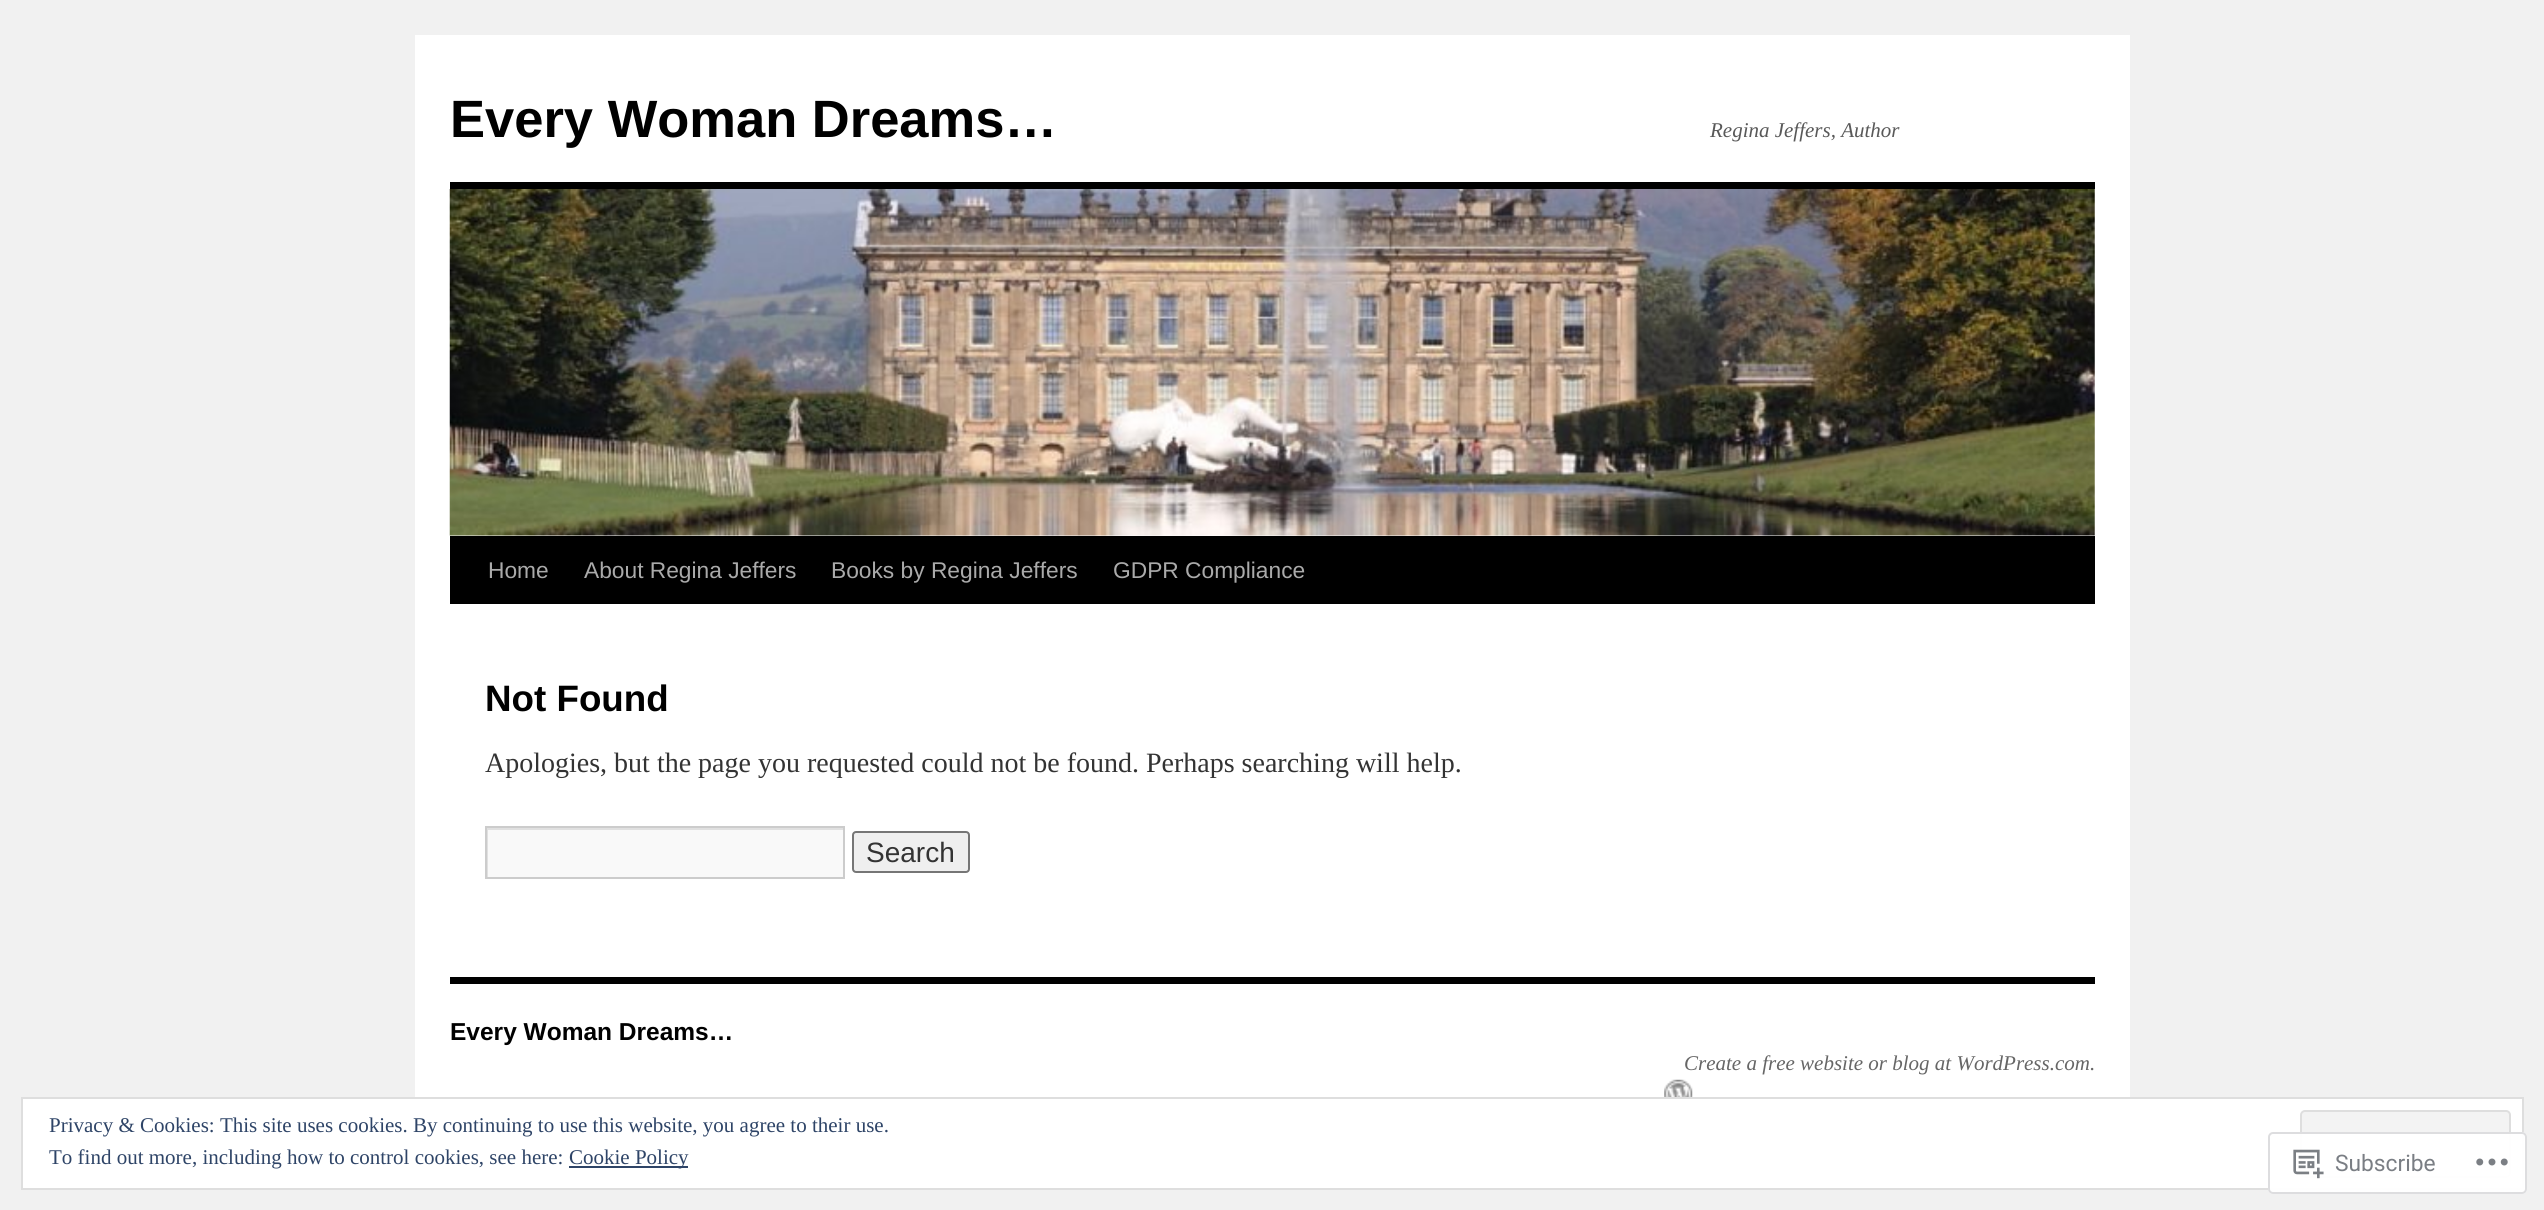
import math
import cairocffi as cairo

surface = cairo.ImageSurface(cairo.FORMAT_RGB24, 2544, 1210)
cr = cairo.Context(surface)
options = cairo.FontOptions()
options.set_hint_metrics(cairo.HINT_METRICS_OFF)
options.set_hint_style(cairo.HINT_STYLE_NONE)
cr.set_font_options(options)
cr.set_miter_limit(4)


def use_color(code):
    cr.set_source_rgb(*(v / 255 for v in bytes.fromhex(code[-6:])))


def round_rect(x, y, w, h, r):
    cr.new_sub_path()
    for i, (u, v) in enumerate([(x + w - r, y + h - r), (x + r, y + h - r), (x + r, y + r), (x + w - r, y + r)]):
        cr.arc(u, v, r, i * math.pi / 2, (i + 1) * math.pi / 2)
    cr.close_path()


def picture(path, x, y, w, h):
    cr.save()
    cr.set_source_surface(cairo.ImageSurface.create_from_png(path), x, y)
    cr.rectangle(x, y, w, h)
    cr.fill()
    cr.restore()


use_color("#f1f1f1")
cr.paint()
use_color("#ffffff")
cr.rectangle(415, 35, 1715, 1062)
cr.fill()
cr.select_font_face("Liberation Sans", cairo.FONT_SLANT_NORMAL, cairo.FONT_WEIGHT_BOLD)
cr.set_font_size(52.5)
use_color("#000000")
cr.move_to(450, 137)
cr.show_text("Every Woman Dreams…")
cr.select_font_face("Liberation Serif", cairo.FONT_SLANT_ITALIC)
cr.set_font_size(21)
use_color("#595959")
cr.move_to(1710, 137)
cr.show_text("Regina Jeffers, Author")
use_color("#000000")
cr.rectangle(450, 182, 1645, 7)
cr.fill()
cr.rectangle(450, 536, 1645, 68)
cr.fill()
picture("img1.png", 449, 189, 1646, 347)
cr.select_font_face("Liberation Sans")
cr.set_font_size(22.75)
use_color("#aaaaaa")
cr.move_to(488, 578)
cr.show_text("Home")
cr.move_to(584, 578)
cr.show_text("About Regina Jeffers")
cr.move_to(831, 578)
cr.show_text("Books by Regina Jeffers")
cr.move_to(1113, 578)
cr.show_text("GDPR Compliance")
cr.select_font_face("Liberation Sans", cairo.FONT_SLANT_NORMAL, cairo.FONT_WEIGHT_BOLD)
cr.set_font_size(36.75)
use_color("#000000")
cr.move_to(485, 711)
cr.show_text("Not Found")
cr.select_font_face("Liberation Serif")
cr.set_font_size(28)
use_color("#333333")
cr.move_to(485, 772)
cr.show_text("Apologies, but the page you requested could not be found. Perhaps searching will help.")
use_color("#f9f9f9")
cr.rectangle(488, 830, 355, 47)
cr.fill()
cr.save()
cr.rectangle(487, 828, 357, 49)
cr.clip()
use_color("#e0e0e0")
cr.set_fill_rule(cairo.FILL_RULE_EVEN_ODD)
cr.new_path()
cr.move_to(313, 654)
cr.line_to(1017, 654)
cr.line_to(1017, 1050)
cr.line_to(313, 1050)
cr.close_path()
cr.move_to(488, 830)
cr.line_to(845, 830)
cr.line_to(845, 878)
cr.line_to(488, 878)
cr.close_path()
cr.fill()
cr.restore()
cr.rectangle(486, 827, 358, 51)
use_color("#cccccc")
cr.stroke()
use_color("#efefef")
round_rect(853, 832, 116, 40, 3)
cr.fill_preserve()
use_color("#767676")
cr.stroke()
cr.select_font_face("Liberation Sans")
use_color("#333333")
cr.move_to(866, 862)
cr.show_text("Search")
use_color("#000000")
cr.rectangle(450, 977, 1645, 7)
cr.fill()
cr.select_font_face("Liberation Sans", cairo.FONT_SLANT_NORMAL, cairo.FONT_WEIGHT_BOLD)
cr.set_font_size(24.5)
cr.move_to(450, 1040)
cr.show_text("Every Woman Dreams…")
cr.select_font_face("Liberation Serif", cairo.FONT_SLANT_ITALIC)
cr.set_font_size(21)
use_color("#666666")
cr.move_to(1684, 1070)
cr.show_text("Create a free website or blog at WordPress.com.")
picture("img2.png", 1664, 1079, 29, 18)
use_color("#ffffff")
cr.rectangle(22, 1098, 2501, 91)
cr.fill_preserve()
use_color("#dedede")
cr.stroke()
cr.select_font_face("Liberation Serif")
use_color("#2e4467")
cr.move_to(49, 1132)
cr.show_text("Privacy & Cookies: This site uses cookies. By continuing to use this website, you agree to their use.")
use_color("#f3f3f3")
round_rect(2301, 1111, 209, 66, 4)
cr.fill_preserve()
use_color("#dedede")
cr.stroke()
use_color("#2e4467")
cr.move_to(49, 1164)
cr.show_text("To find out more, including how to control cookies, see here:")
cr.rectangle(569, 1166, 119, 2)
cr.fill()
cr.move_to(569, 1164)
cr.show_text("Cookie Policy")
cr.set_source_rgba(1, 1, 1, 0.98)
round_rect(2268, 1132, 259, 62, 5)
cr.fill()
round_rect(2269, 1133, 257, 60, 4)
cr.set_source_rgba(0.863, 0.863, 0.871, 0.98)
cr.stroke()
picture("img3.png", 2293, 1149, 31, 30)
cr.select_font_face("Roboto")
cr.set_font_size(22.75)
use_color("#7a7e84")
cr.move_to(2335, 1171)
cr.show_text("Subscribe")
picture("img4.png", 2476, 1158, 32, 8)
surface.write_to_png("result.png")
